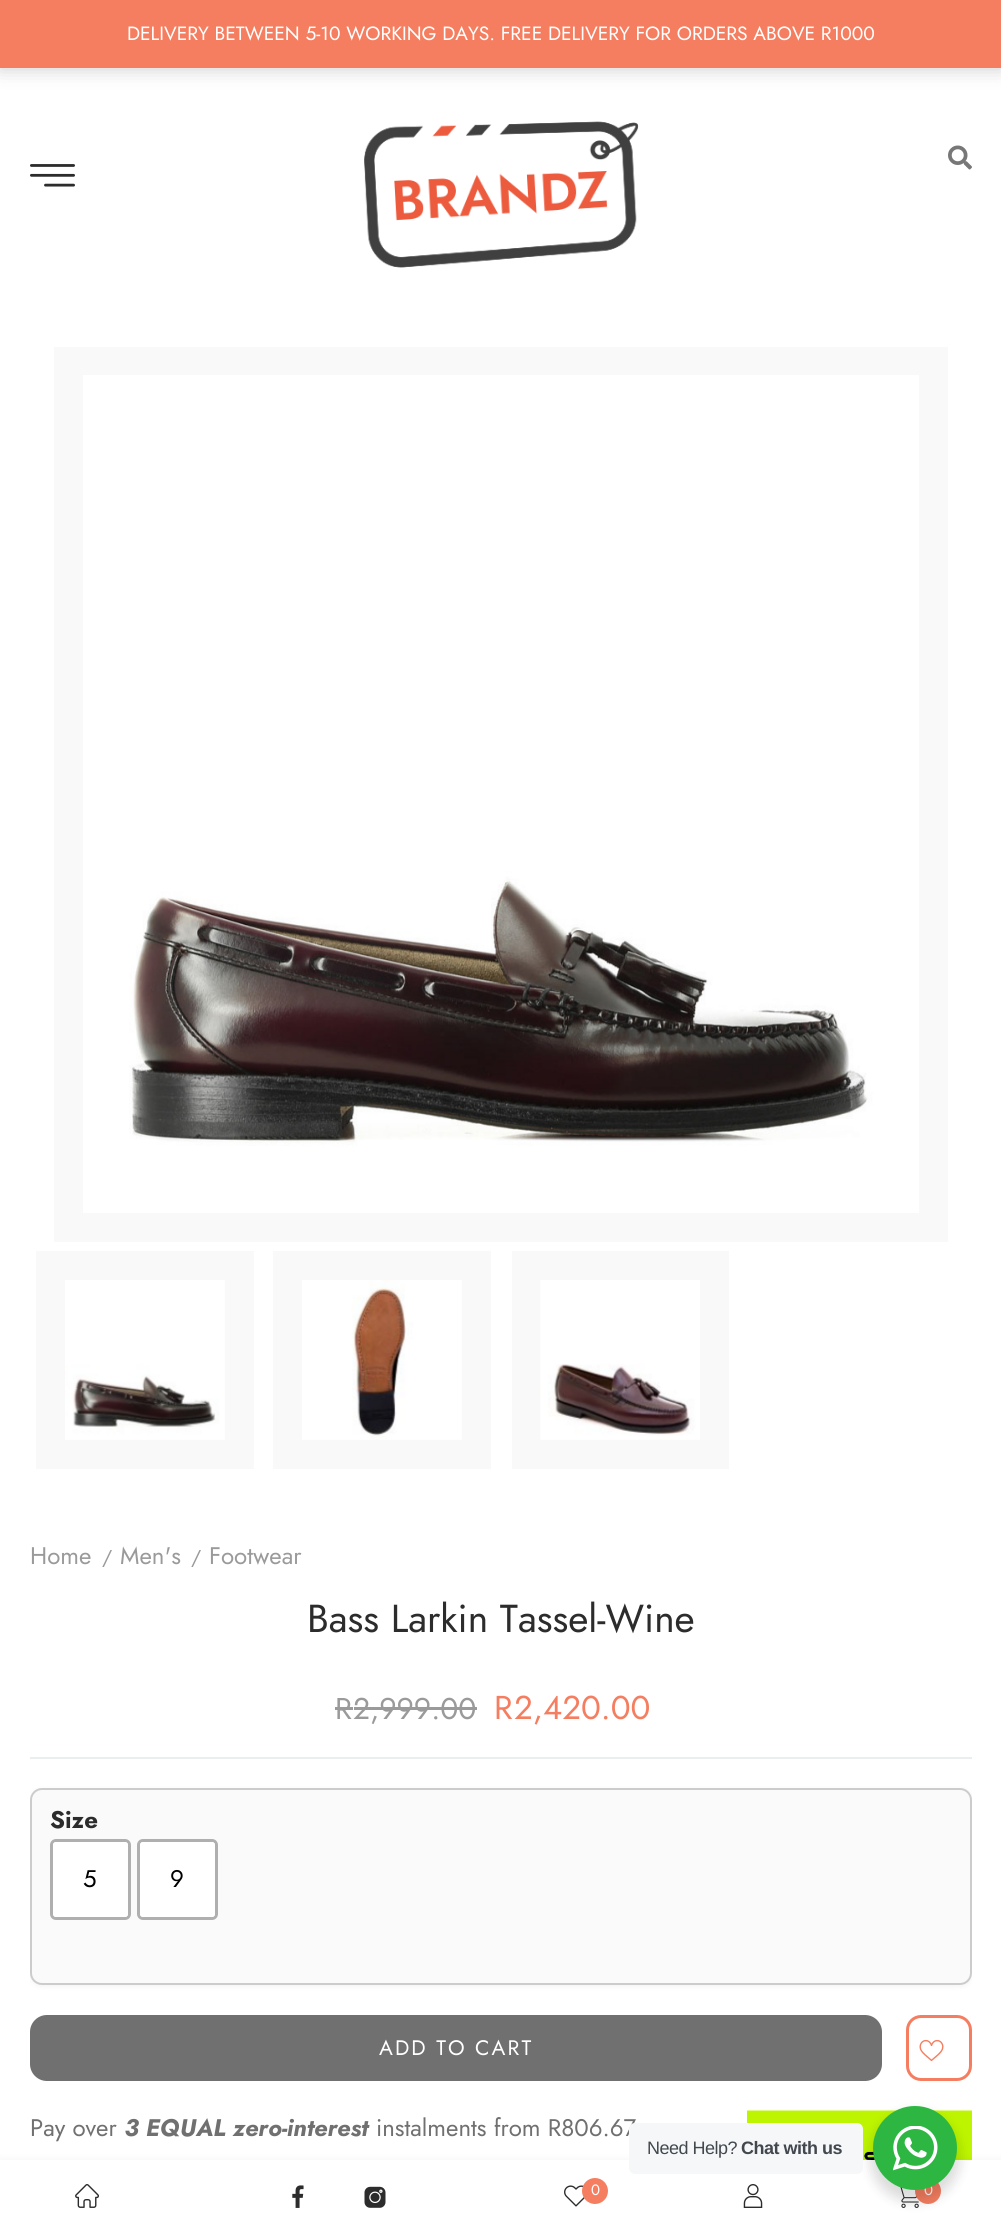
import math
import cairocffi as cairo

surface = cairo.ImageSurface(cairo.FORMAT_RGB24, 1001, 2235)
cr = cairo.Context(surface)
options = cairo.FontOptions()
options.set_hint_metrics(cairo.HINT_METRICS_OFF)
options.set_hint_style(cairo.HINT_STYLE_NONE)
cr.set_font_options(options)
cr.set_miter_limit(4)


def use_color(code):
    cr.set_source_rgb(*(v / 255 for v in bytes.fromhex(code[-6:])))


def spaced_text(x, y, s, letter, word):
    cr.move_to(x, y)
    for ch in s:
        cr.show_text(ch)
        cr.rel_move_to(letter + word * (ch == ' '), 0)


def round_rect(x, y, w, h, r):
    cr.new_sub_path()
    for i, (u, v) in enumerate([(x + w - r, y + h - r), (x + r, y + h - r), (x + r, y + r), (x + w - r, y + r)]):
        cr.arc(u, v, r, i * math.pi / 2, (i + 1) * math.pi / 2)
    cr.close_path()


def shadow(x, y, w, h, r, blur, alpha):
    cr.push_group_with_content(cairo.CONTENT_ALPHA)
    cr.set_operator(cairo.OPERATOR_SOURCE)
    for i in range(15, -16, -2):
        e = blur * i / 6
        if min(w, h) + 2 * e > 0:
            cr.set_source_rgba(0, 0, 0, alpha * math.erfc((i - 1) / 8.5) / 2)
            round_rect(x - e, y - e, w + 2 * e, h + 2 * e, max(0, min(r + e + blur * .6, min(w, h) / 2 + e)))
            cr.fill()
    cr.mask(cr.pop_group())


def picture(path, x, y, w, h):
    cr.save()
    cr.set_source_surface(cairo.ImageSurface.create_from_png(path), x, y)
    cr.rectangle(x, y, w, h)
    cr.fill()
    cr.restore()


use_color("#ffffff")
cr.paint()
use_color("#000000")
shadow(0, 2, 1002, 67, 0, 9.5, 0.2)
use_color("#f57e60")
cr.rectangle(0, 0, 1001, 68)
cr.fill()
cr.select_font_face("Jost")
cr.set_font_size(19.2)
use_color("#ffffff")
cr.move_to(127, 40)
cr.show_text("DELIVERY BETWEEN 5-10 WORKING DAYS. FREE DELIVERY FOR ORDERS ABOVE R1000")
use_color("#f9f9f9")
cr.rectangle(54, 347, 894, 895)
cr.fill()
picture("img1.png", 83, 375, 836, 838)
cr.rectangle(36, 1251, 218, 218)
cr.fill()
picture("img2.png", 65, 1280, 160, 160)
cr.rectangle(273, 1251, 218, 218)
cr.fill()
picture("img3.png", 302, 1280, 160, 160)
cr.rectangle(512, 1251, 217, 218)
cr.fill()
picture("img4.png", 540, 1280, 160, 160)
cr.set_font_size(24)
use_color("#9a9a9a")
cr.move_to(30, 1564)
cr.show_text("Home")
cr.set_font_size(20)
cr.move_to(102, 1564)
cr.show_text("/")
cr.set_font_size(24)
cr.move_to(120, 1564)
cr.show_text("Men's")
cr.set_font_size(20)
cr.move_to(191, 1564)
cr.show_text("/")
cr.set_font_size(24)
cr.move_to(209, 1564)
cr.show_text("Footwear")
cr.set_font_size(39)
use_color("#2c2c2c")
cr.move_to(307, 1632)
cr.show_text("Bass Larkin Tassel-Wine")
cr.set_font_size(30)
use_color("#9a9a9a")
cr.move_to(335, 1719)
cr.show_text("R")
cr.rectangle(335, 1707, 18, 3)
cr.fill()
cr.rectangle(354, 1707, 123, 3)
cr.fill()
cr.move_to(353, 1719)
cr.show_text("2,999.00")
cr.set_font_size(33)
use_color("#f57e60")
cr.move_to(494, 1719)
cr.show_text("R")
cr.move_to(514, 1719)
cr.show_text("2,420.00")
use_color("#ebeeee")
cr.rectangle(30, 1757, 942, 2)
cr.fill()
cr.save()
cr.rectangle(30, 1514, 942, 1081)
cr.clip()
use_color("#000000")
shadow(30, 1790, 942, 196, 12, 3, 0.06)
cr.restore()
use_color("#fafafa")
round_rect(31, 1789, 940, 195, 11)
cr.fill_preserve()
use_color("#cccccc")
cr.stroke()
cr.select_font_face("Jost", cairo.FONT_SLANT_NORMAL, cairo.FONT_WEIGHT_BOLD)
cr.set_font_size(24)
use_color("#2c2c2c")
cr.move_to(50, 1828)
cr.show_text("Size")
round_rect(51.5, 1840.5, 78, 78, 4.5)
use_color("#afafaf")
cr.set_line_width(3)
cr.stroke()
use_color("#ffffff")
round_rect(53, 1842, 75, 75, 3)
cr.fill()
cr.select_font_face("Jost")
use_color("#000000")
cr.move_to(83, 1887)
cr.show_text("5")
round_rect(138.5, 1840.5, 78, 78, 4.5)
use_color("#afafaf")
cr.stroke()
use_color("#ffffff")
round_rect(140, 1842, 75, 75, 3)
cr.fill()
use_color("#000000")
cr.move_to(170, 1887)
cr.show_text("9")
use_color("#707070")
round_rect(30, 2015, 852, 66, 17)
cr.fill()
cr.set_font_size(21)
use_color("#ffffff")
spaced_text(379, 2055, "ADD TO CART", 2.1, 0)
round_rect(907.5, 2016.5, 63, 63, 13.5)
use_color("#f57e60")
cr.stroke()
picture("img5.png", 919, 2039, 25, 23)
cr.set_font_size(24)
use_color("#707070")
cr.move_to(30, 2136)
cr.show_text("Pay over")
cr.select_font_face("Jost", cairo.FONT_SLANT_ITALIC, cairo.FONT_WEIGHT_BOLD)
cr.move_to(124, 2136)
cr.show_text("3 EQUAL zero-interest")
cr.select_font_face("Jost")
cr.move_to(376, 2136)
cr.show_text("instalments from R806.67")
picture("img6.png", 747, 2110, 225, 50)
picture("img7.png", 30, 164, 45, 23)
picture("img8.png", 364, 121, 275, 147)
picture("img9.png", 948, 145, 24, 25)
use_color("#000000")
shadow(0, 2160, 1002, 75, 0, 4, 0.05)
use_color("#ffffff")
cr.rectangle(0, 2160, 1001, 75)
cr.fill()
picture("img10.png", 75, 2184, 24, 24)
picture("img11.png", 292, 2185, 12, 23)
picture("img12.png", 364, 2186, 22, 22)
picture("img13.png", 564, 2185, 21, 22)
use_color("#f57e60")
cr.arc(595, 2191, 13, 0, 2 * math.pi)
cr.fill()
cr.set_font_size(15)
use_color("#ffffff")
cr.move_to(591, 2195)
cr.show_text("0")
picture("img14.png", 743, 2184, 20, 24)
picture("img15.png", 897, 2185, 22, 23)
use_color("#f57e60")
cr.arc(928, 2191, 13, 0, 2 * math.pi)
cr.fill()
use_color("#ffffff")
cr.move_to(924, 2195)
cr.show_text("0")
use_color("#000000")
shadow(870, 2112, 90, 90, 45, 6, 0.14)
use_color("#f5f7f9")
round_rect(629, 2123, 234, 51, 6)
cr.fill()
cr.select_font_face("Liberation Sans")
cr.set_font_size(18)
use_color("#43474e")
spaced_text(647, 2154, "Need Help?", -0.5, 0)
cr.select_font_face("Liberation Sans", cairo.FONT_SLANT_NORMAL, cairo.FONT_WEIGHT_BOLD)
spaced_text(741, 2154, "Chat with us", -0.5, 0)
use_color("#2db742")
cr.new_path()
cr.arc(915, 2148, 42, 0, 2 * math.pi)
cr.fill()
picture("img16.png", 893, 2126, 45, 45)
surface.write_to_png("result.png")
